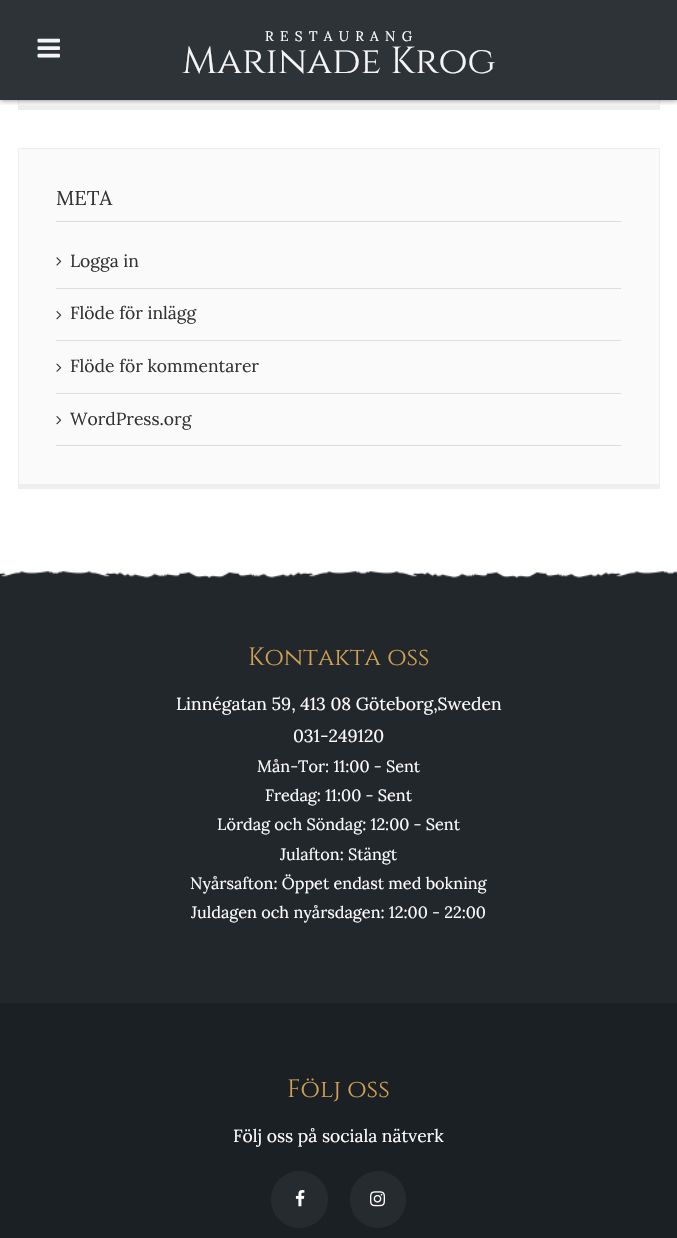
void draw(SkCanvas* canvas) {
    SkPaint paint;
    paint.setAntiAlias(true);
    auto spacedText = [&](const char* s, float x, float y, const SkFont& font, const SkPaint& ink, float letter, float word) {
        std::vector<SkGlyphID> glyphs(font.countText(s, strlen(s), SkTextEncoding::kUTF8));
        std::vector<float> xs(glyphs.size());
        font.textToGlyphs(s, strlen(s), SkTextEncoding::kUTF8, glyphs);
        font.getXPos(glyphs, xs, x);
        float extra = 0;
        for (size_t i = 0; i < glyphs.size(); i++) {
            xs[i] += extra;
            extra += letter + word * (glyphs[i] == font.unicharToGlyph(' '));
        }
        canvas->drawTextBlob(SkTextBlob::MakeFromPosHGlyphs(glyphs, xs, y, font), 0, 0, ink);
    };
    canvas->clear(0xFFFFFFFF);
    paint.setColor(0xFF2E3338);
    canvas->drawRect(SkRect::MakeXYWH(0, 0, 677, 100), paint);
    paint.setColor(0xFFFAFAFA);
    canvas->drawRect(SkRect::MakeXYWH(19, 100, 640, 5), paint);
    paint.setColor(0xFFEEEEEE);
    canvas->drawRect(SkRect::MakeXYWH(659, 100, 1, 10), paint);
    canvas->drawRect(SkRect::MakeXYWH(18, 105, 642, 5), paint);
    canvas->drawRect(SkRect::MakeXYWH(18, 100, 1, 10), paint);
    canvas->save();
    canvas->clipRect(SkRect::MakeXYWH(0, 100, 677, 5));
    paint.setColor(0x80000000);
    paint.setMaskFilter(SkMaskFilter::MakeBlur(kNormal_SkBlurStyle, 3));
    canvas->drawRect(SkRect::MakeXYWH(0, 0, 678, 100), paint);
    paint.setMaskFilter(nullptr);
    canvas->restore();
    canvas->drawImageRect(SkImages::DeferredFromEncodedData(SkData::MakeFromFileName("img1.png")), SkRect::MakeXYWH(37, 38, 23, 20), SkSamplingOptions());
    SkFont font1(fontMgr->matchFamilyStyle("Lora", SkFontStyle::Normal()), 13.75f);
    font1.setSubpixel(true);
    paint.setColor(0xFFFFFFFF);
    spacedText("RESTAURANG", 265, 41, font1, paint, 6.25f, 0);
    SkFont font2(fontMgr->matchFamilyStyle("Cinzel", SkFontStyle::Normal()), 37.5f);
    font2.setSubpixel(true);
    paint.setColor(0xFFF5F5F5);
    canvas->drawString("Marinade Krog", 182, 73, font2, paint);
    paint.setColor(0xFFFAFAFA);
    canvas->drawRect(SkRect::MakeXYWH(19, 149, 640, 335), paint);
    paint.setColor(0xFFEEEEEE);
    canvas->drawRect(SkRect::MakeXYWH(18, 148, 642, 1), paint);
    canvas->drawRect(SkRect::MakeXYWH(659, 148, 1, 341), paint);
    canvas->drawRect(SkRect::MakeXYWH(18, 484, 642, 5), paint);
    canvas->drawRect(SkRect::MakeXYWH(18, 148, 1, 341), paint);
    paint.setColor(0xFFDDDDDD);
    canvas->drawRect(SkRect::MakeXYWH(56, 221, 565, 1), paint);
    SkFont font3(fontMgr->matchFamilyStyle("Lora", SkFontStyle::Normal()), 20);
    font3.setSubpixel(true);
    paint.setColor(0xFF333333);
    canvas->drawString("META", 56, 205, font3, paint);
    paint.setColor(0xFFDDDDDD);
    canvas->drawRect(SkRect::MakeXYWH(56, 288, 565, 1), paint);
    canvas->drawImageRect(SkImages::DeferredFromEncodedData(SkData::MakeFromFileName("img2.png")), SkRect::MakeXYWH(56, 257, 6, 9), SkSamplingOptions());
    SkFont font4(fontMgr->matchFamilyStyle("Lora", SkFontStyle::Normal()), 17.5f);
    font4.setSubpixel(true);
    paint.setColor(0xFF333333);
    canvas->drawString("Logga in", 70, 267, font4, paint);
    paint.setColor(0xFFDDDDDD);
    canvas->drawRect(SkRect::MakeXYWH(56, 340, 565, 1), paint);
    canvas->drawImageRect(SkImages::DeferredFromEncodedData(SkData::MakeFromFileName("img3.png")), SkRect::MakeXYWH(56, 311, 6, 9), SkSamplingOptions());
    paint.setColor(0xFF333333);
    canvas->drawString("Flöde för inlägg", 70, 319, font4, paint);
    paint.setColor(0xFFDDDDDD);
    canvas->drawRect(SkRect::MakeXYWH(56, 393, 565, 1), paint);
    canvas->drawImageRect(SkImages::DeferredFromEncodedData(SkData::MakeFromFileName("img4.png")), SkRect::MakeXYWH(56, 363, 6, 9), SkSamplingOptions());
    paint.setColor(0xFF333333);
    canvas->drawString("Flöde för kommentarer", 70, 372, font4, paint);
    paint.setColor(0xFFDDDDDD);
    canvas->drawRect(SkRect::MakeXYWH(56, 445, 565, 1), paint);
    canvas->drawImageRect(SkImages::DeferredFromEncodedData(SkData::MakeFromFileName("img3.png")), SkRect::MakeXYWH(56, 416, 6, 9), SkSamplingOptions());
    paint.setColor(0xFF333333);
    canvas->drawString("WordPress.org", 70, 425, font4, paint);
    paint.setColor(0xFF22272B);
    canvas->drawRect(SkRect::MakeXYWH(0, 571, 677, 432), paint);
    canvas->drawImageRect(SkImages::DeferredFromEncodedData(SkData::MakeFromFileName("img5.png")), SkRect::MakeXYWH(0, 570, 677, 8), SkSamplingOptions());
    paint.setColor(0xFF1B2024);
    canvas->drawRect(SkRect::MakeXYWH(0, 1003, 677, 235), paint);
    SkFont font5(fontMgr->matchFamilyStyle("Cinzel", SkFontStyle::Normal()), 25);
    font5.setSubpixel(true);
    paint.setColor(0xFFD1A054);
    canvas->drawString("Kontakta oss", 248, 665, font5, paint);
    paint.setColor(0xFFFFFFFF);
    canvas->drawString("Linnégatan 59, 413 08 Göteborg,Sweden", 176, 710, font4, paint);
    canvas->drawString("031-249120", 293, 742, font4, paint);
    SkFont font6(fontMgr->matchFamilyStyle("Lora", SkFontStyle::Normal()), 16.25f);
    font6.setSubpixel(true);
    canvas->drawString("Mån-Tor: 11:00 - Sent", 257, 772, font6, paint);
    canvas->drawString("Fredag: 11:00 - Sent", 265, 801, font6, paint);
    canvas->drawString("Lördag och Söndag: 12:00 - Sent", 217, 830, font6, paint);
    canvas->drawString("Julafton: Stängt", 280, 860, font6, paint);
    canvas->drawString("Nyårsafton: Öppet endast med bokning", 190, 889, font6, paint);
    canvas->drawString("Juldagen och nyårsdagen: 12:00 - 22:00", 191, 918, font6, paint);
    paint.setColor(0xFFD1A054);
    canvas->drawString("Följ oss", 287, 1097, font5, paint);
    paint.setColor(0xFFFFFFFF);
    canvas->drawString("Följ oss på sociala nätverk", 233, 1142, font4, paint);
    paint.setColor(0xFF262B2F);
    canvas->drawCircle(299.5f, 1199.5f, 28.5f, paint);
    canvas->drawImageRect(SkImages::DeferredFromEncodedData(SkData::MakeFromFileName("img6.png")), SkRect::MakeXYWH(295, 1190, 10, 17), SkSamplingOptions());
    canvas->drawRoundRect(SkRect::MakeXYWH(350, 1171, 56, 57), 28, 28, paint);
    canvas->drawImageRect(SkImages::DeferredFromEncodedData(SkData::MakeFromFileName("img7.png")), SkRect::MakeXYWH(370, 1191, 15, 16), SkSamplingOptions());
}
